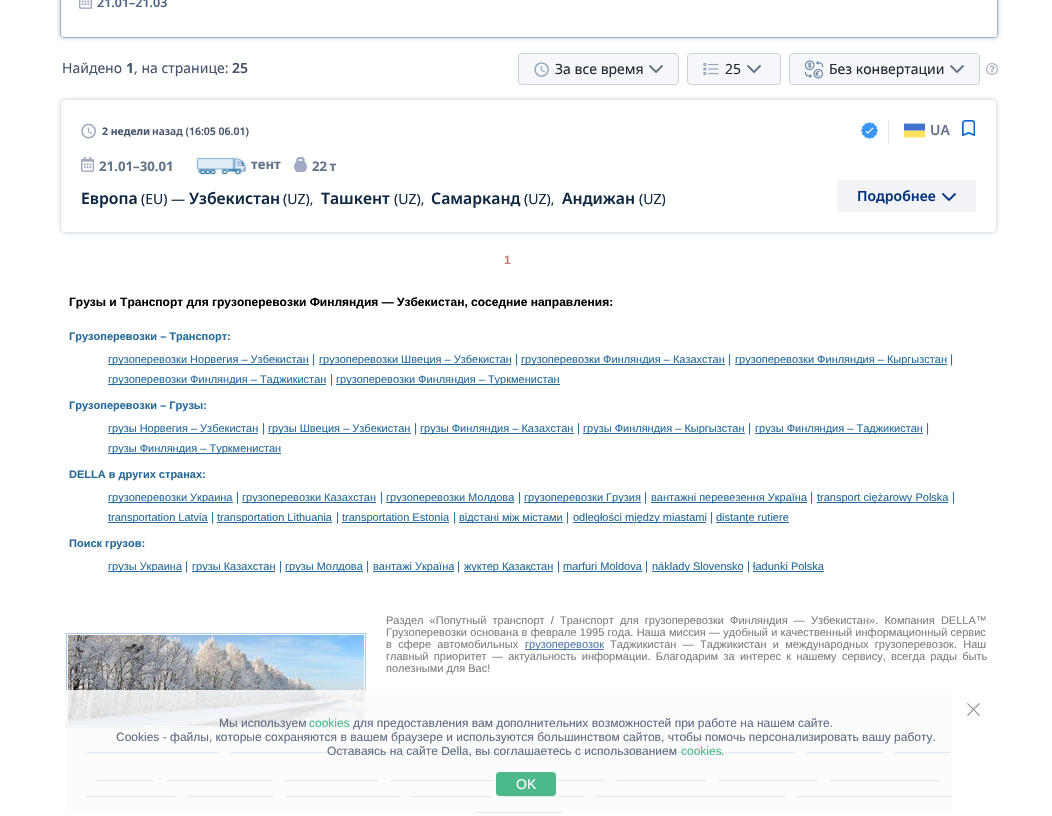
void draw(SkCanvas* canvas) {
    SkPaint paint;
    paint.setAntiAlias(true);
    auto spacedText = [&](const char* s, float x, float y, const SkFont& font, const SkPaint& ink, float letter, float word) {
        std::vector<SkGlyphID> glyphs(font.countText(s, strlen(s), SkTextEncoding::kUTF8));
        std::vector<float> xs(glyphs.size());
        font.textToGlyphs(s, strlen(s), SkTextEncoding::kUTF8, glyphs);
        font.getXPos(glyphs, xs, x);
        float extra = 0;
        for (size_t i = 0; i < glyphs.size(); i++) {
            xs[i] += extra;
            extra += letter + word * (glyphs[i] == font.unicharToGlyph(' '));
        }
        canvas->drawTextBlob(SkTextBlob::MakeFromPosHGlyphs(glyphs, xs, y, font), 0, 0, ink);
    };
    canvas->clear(0xFFFFFFFF);
    canvas->save();
    canvas->clipPath(SkPathBuilder(SkPathFillType::kEvenOdd).moveTo(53, 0).lineTo(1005, 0).lineTo(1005, 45).lineTo(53, 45).close().moveTo(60, -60).lineTo(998, -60).lineTo(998, 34).cubicTo(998, 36, 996, 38, 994, 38).lineTo(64, 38).cubicTo(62, 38, 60, 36, 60, 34).close().detach(), true);
    paint.setColor(0x63486581);
    paint.setMaskFilter(SkMaskFilter::MakeBlur(kNormal_SkBlurStyle, 2));
    canvas->drawRoundRect(SkRect::MakeXYWH(60, -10, 938, 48), 4, 4, paint);
    paint.setMaskFilter(nullptr);
    canvas->restore();
    paint.setStyle(SkPaint::kStroke_Style);
    paint.setStrokeWidth(1);
    paint.setColor(0xFF9FB3C8);
    canvas->drawPath(SkPathBuilder().moveTo(60.5f, -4.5f).lineTo(997.5f, -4.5f).lineTo(997.5f, 34).cubicTo(997.5f, 36, 996, 37.5f, 994, 37.5f).lineTo(64, 37.5f).cubicTo(62, 37.5f, 60.5f, 36, 60.5f, 34).close().detach(), paint);
    canvas->drawImageRect(SkImages::DeferredFromEncodedData(SkData::MakeFromFileName("img1.png")), SkRect::MakeXYWH(79, 0, 13, 9), SkSamplingOptions());
    SkFont font1(fontMgr->matchFamilyStyle("Noto Sans", SkFontStyle(600, SkFontStyle::kNormal_Width, SkFontStyle::kUpright_Slant)), 12.5f);
    font1.setSubpixel(true);
    paint.setStyle(SkPaint::kFill_Style);
    paint.setColor(0xFF486581);
    canvas->drawString("21.01–21.03", 97, 7, font1, paint);
    SkFont font2(fontMgr->matchFamilyStyle("Noto Sans", SkFontStyle::Normal()), 14);
    font2.setSubpixel(true);
    paint.setColor(0xFF45556B);
    canvas->drawString("Найдено", 62, 73, font2, paint);
    SkFont font3(fontMgr->matchFamilyStyle("Noto Sans", SkFontStyle::Bold()), 14);
    font3.setSubpixel(true);
    canvas->drawString("1", 126, 73, font3, paint);
    canvas->drawString(", на странице:", 134, 73, font2, paint);
    SkFont font4(fontMgr->matchFamilyStyle("Noto Sans", SkFontStyle(600, SkFontStyle::kNormal_Width, SkFontStyle::kUpright_Slant)), 14);
    font4.setSubpixel(true);
    canvas->drawString("25", 232, 73, font4, paint);
    paint.setColor(0xFFF5F7FA);
    canvas->drawRoundRect(SkRect::MakeXYWH(518.5f, 53.5f, 160, 31), 3.5f, 3.5f, paint);
    paint.setStyle(SkPaint::kStroke_Style);
    paint.setColor(0xFFCBD2D9);
    canvas->drawRoundRect(SkRect::MakeXYWH(518.5f, 53.5f, 160, 31), 3.5f, 3.5f, paint);
    canvas->drawImageRect(SkImages::DeferredFromEncodedData(SkData::MakeFromFileName("img2.png")), SkRect::MakeXYWH(534, 62, 15, 15), SkSamplingOptions());
    paint.setStyle(SkPaint::kFill_Style);
    paint.setColor(0xFF1F2933);
    canvas->drawString("За все время", 555, 74, font2, paint);
    canvas->drawImageRect(SkImages::DeferredFromEncodedData(SkData::MakeFromFileName("img3.png")), SkRect::MakeXYWH(649, 65, 14, 8), SkSamplingOptions());
    paint.setColor(0xFFF5F7FA);
    canvas->drawRoundRect(SkRect::MakeXYWH(687.5f, 53.5f, 93, 31), 3.5f, 3.5f, paint);
    paint.setStyle(SkPaint::kStroke_Style);
    paint.setColor(0xFFCBD2D9);
    canvas->drawRoundRect(SkRect::MakeXYWH(687.5f, 53.5f, 93, 31), 3.5f, 3.5f, paint);
    canvas->drawImageRect(SkImages::DeferredFromEncodedData(SkData::MakeFromFileName("img4.png")), SkRect::MakeXYWH(703, 63, 16, 12), SkSamplingOptions());
    paint.setStyle(SkPaint::kFill_Style);
    paint.setColor(0xFF1F2933);
    canvas->drawString("25", 725, 74, font2, paint);
    canvas->drawImageRect(SkImages::DeferredFromEncodedData(SkData::MakeFromFileName("img3.png")), SkRect::MakeXYWH(747, 65, 14, 8), SkSamplingOptions());
    paint.setColor(0xFFF5F7FA);
    canvas->drawRoundRect(SkRect::MakeXYWH(789.5f, 53.5f, 190, 31), 3.5f, 3.5f, paint);
    paint.setStyle(SkPaint::kStroke_Style);
    paint.setColor(0xFFCBD2D9);
    canvas->drawRoundRect(SkRect::MakeXYWH(789.5f, 53.5f, 190, 31), 3.5f, 3.5f, paint);
    canvas->drawImageRect(SkImages::DeferredFromEncodedData(SkData::MakeFromFileName("img5.png")), SkRect::MakeXYWH(805, 60, 18, 19), SkSamplingOptions());
    paint.setStyle(SkPaint::kFill_Style);
    paint.setColor(0xFF1F2933);
    canvas->drawString("Без конвертации", 829, 74, font2, paint);
    canvas->drawImageRect(SkImages::DeferredFromEncodedData(SkData::MakeFromFileName("img3.png")), SkRect::MakeXYWH(950, 65, 14, 8), SkSamplingOptions());
    canvas->drawImageRect(SkImages::DeferredFromEncodedData(SkData::MakeFromFileName("img6.png")), SkRect::MakeXYWH(986, 63, 12, 12), SkSamplingOptions());
    canvas->save();
    canvas->clipPath(SkPathBuilder(SkPathFillType::kEvenOdd).moveTo(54, 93).lineTo(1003, 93).lineTo(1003, 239).lineTo(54, 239).close().moveTo(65, 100).lineTo(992, 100).cubicTo(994, 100, 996, 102, 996, 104).lineTo(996, 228).cubicTo(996, 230, 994, 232, 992, 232).lineTo(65, 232).cubicTo(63, 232, 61, 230, 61, 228).lineTo(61, 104).cubicTo(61, 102, 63, 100, 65, 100).close().detach(), true);
    paint.setColor(0x63486581);
    paint.setMaskFilter(SkMaskFilter::MakeBlur(kNormal_SkBlurStyle, 2));
    canvas->drawRoundRect(SkRect::MakeXYWH(61, 100, 935, 132), 4, 4, paint);
    paint.setMaskFilter(nullptr);
    canvas->restore();
    paint.setStyle(SkPaint::kStroke_Style);
    paint.setColor(0xFFFFFFFF);
    canvas->drawRoundRect(SkRect::MakeXYWH(61.5f, 100.5f, 934, 131), 3.5f, 3.5f, paint);
    canvas->drawImageRect(SkImages::DeferredFromEncodedData(SkData::MakeFromFileName("img7.png")), SkRect::MakeXYWH(81, 123, 15, 16), SkSamplingOptions());
    SkFont font5(fontMgr->matchFamilyStyle("Noto Sans", SkFontStyle::Bold()), 10.5f);
    font5.setSubpixel(true);
    paint.setStyle(SkPaint::kFill_Style);
    paint.setColor(0xFF45556B);
    canvas->drawString("2 недели", 102, 135, font5, paint);
    SkFont font6(fontMgr->matchFamilyStyle("Noto Sans", SkFontStyle(600, SkFontStyle::kNormal_Width, SkFontStyle::kUpright_Slant)), 10.5f);
    font6.setSubpixel(true);
    canvas->drawString("назад (16:05 06.01)", 152, 135, font6, paint);
    canvas->drawImageRect(SkImages::DeferredFromEncodedData(SkData::MakeFromFileName("img8.png")), SkRect::MakeXYWH(861, 122, 17, 17), SkSamplingOptions());
    paint.setColor(0xFFE1E5E9);
    canvas->drawRect(SkRect::MakeXYWH(888, 120, 1, 23), paint);
    canvas->drawImageRect(SkImages::DeferredFromEncodedData(SkData::MakeFromFileName("img9.png")), SkRect::MakeXYWH(904, 123, 21, 15), SkSamplingOptions());
    paint.setColor(0xFF63758B);
    canvas->drawString("UA", 930, 135, font4, paint);
    canvas->drawImageRect(SkImages::DeferredFromEncodedData(SkData::MakeFromFileName("img10.png")), SkRect::MakeXYWH(962, 120, 13, 16), SkSamplingOptions());
    canvas->drawImageRect(SkImages::DeferredFromEncodedData(SkData::MakeFromFileName("img11.png")), SkRect::MakeXYWH(81, 157, 13, 15), SkSamplingOptions());
    SkFont font7(fontMgr->matchFamilyStyle("Noto Sans", SkFontStyle::Bold()), 13.25f);
    font7.setSubpixel(true);
    canvas->drawString("21.01–30.01", 99, 171, font7, paint);
    canvas->drawImageRect(SkImages::DeferredFromEncodedData(SkData::MakeFromFileName("img12.png")), SkRect::MakeXYWH(196, 157, 50, 18), SkSamplingOptions());
    canvas->drawString("тент", 251, 169, font7, paint);
    canvas->drawImageRect(SkImages::DeferredFromEncodedData(SkData::MakeFromFileName("img13.png")), SkRect::MakeXYWH(294, 157, 13, 15), SkSamplingOptions());
    spacedText("22 т", 312, 171, font7, paint, 0, -1);
    SkFont font8(fontMgr->matchFamilyStyle("Noto Sans", SkFontStyle(600, SkFontStyle::kNormal_Width, SkFontStyle::kUpright_Slant)), 15.75f);
    font8.setSubpixel(true);
    paint.setColor(0xFF102A43);
    canvas->drawString("Европа", 81, 204, font8, paint);
    canvas->drawString("(EU) —", 141, 204, font2, paint);
    canvas->drawString("Узбекистан", 189, 204, font8, paint);
    canvas->drawString("(UZ),", 283, 204, font2, paint);
    canvas->drawString("Ташкент", 321, 204, font8, paint);
    canvas->drawString("(UZ),", 394, 204, font2, paint);
    canvas->drawString("Самарканд", 431, 204, font8, paint);
    canvas->drawString("(UZ),", 524, 204, font2, paint);
    canvas->drawString("Андижан", 562, 204, font8, paint);
    canvas->drawString("(UZ)", 639, 204, font2, paint);
    paint.setColor(0xFFF2F3F7);
    canvas->drawRoundRect(SkRect::MakeXYWH(837, 180, 139, 32), 4, 4, paint);
    paint.setColor(0xFF01337D);
    canvas->drawString("Подробнее", 857, 201, font4, paint);
    canvas->drawImageRect(SkImages::DeferredFromEncodedData(SkData::MakeFromFileName("img14.png")), SkRect::MakeXYWH(942, 193, 14, 8), SkSamplingOptions());
    SkFont font9(fontMgr->matchFamilyStyle("Liberation Sans", SkFontStyle::Bold()), 12);
    font9.setSubpixel(true);
    paint.setColor(0xFFC37A7A);
    canvas->drawString("1", 504, 264, font9, paint);
    paint.setColor(0xFF000000);
    canvas->drawString("Грузы и Транспорт для грузоперевозки Финляндия — Узбекистан, соседние направления:", 69, 306, font9, paint);
    SkFont font10(fontMgr->matchFamilyStyle("Liberation Sans", SkFontStyle::Bold()), 11);
    font10.setSubpixel(true);
    paint.setColor(0xFF256A9A);
    canvas->drawString("Грузоперевозки – Транспорт:", 69, 340, font10, paint);
    canvas->drawRect(SkRect::MakeXYWH(108, 364, 201, 1), paint);
    SkFont font11(fontMgr->matchFamilyStyle("Liberation Sans", SkFontStyle::Normal()), 11);
    font11.setSubpixel(true);
    canvas->drawString("грузоперевозки Норвегия – Узбекистан", 108, 363, font11, paint);
    SkFont font12(fontMgr->matchFamilyStyle("Liberation Sans", SkFontStyle::Normal()), 12);
    font12.setSubpixel(true);
    canvas->drawString("|", 312, 363, font12, paint);
    canvas->drawRect(SkRect::MakeXYWH(319, 364, 192, 1), paint);
    canvas->drawString("грузоперевозки Швеция – Узбекистан", 319, 363, font11, paint);
    canvas->drawString("|", 515, 363, font12, paint);
    canvas->drawRect(SkRect::MakeXYWH(521, 364, 204, 1), paint);
    canvas->drawString("грузоперевозки Финляндия – Казахстан", 521, 363, font11, paint);
    canvas->drawString("|", 728, 363, font12, paint);
    canvas->drawRect(SkRect::MakeXYWH(735, 364, 212, 1), paint);
    canvas->drawString("грузоперевозки Финляндия – Кыргызстан", 735, 363, font11, paint);
    canvas->drawString("|", 950, 363, font12, paint);
    canvas->drawRect(SkRect::MakeXYWH(108, 384, 218, 1), paint);
    canvas->drawString("грузоперевозки Финляндия – Таджикистан", 108, 383, font11, paint);
    canvas->drawString("|", 330, 383, font12, paint);
    canvas->drawRect(SkRect::MakeXYWH(336, 384, 224, 1), paint);
    canvas->drawString("грузоперевозки Финляндия – Туркменистан", 336, 383, font11, paint);
    canvas->drawString("Грузоперевозки – Грузы:", 69, 409, font10, paint);
    canvas->drawRect(SkRect::MakeXYWH(108, 433, 150, 1), paint);
    canvas->drawString("грузы Норвегия – Узбекистан", 108, 432, font11, paint);
    canvas->drawString("|", 262, 432, font12, paint);
    canvas->drawRect(SkRect::MakeXYWH(268, 433, 143, 1), paint);
    canvas->drawString("грузы Швеция – Узбекистан", 268, 432, font11, paint);
    canvas->drawString("|", 414, 432, font12, paint);
    canvas->drawRect(SkRect::MakeXYWH(420, 433, 154, 1), paint);
    canvas->drawString("грузы Финляндия – Казахстан", 420, 432, font11, paint);
    canvas->drawString("|", 577, 432, font12, paint);
    canvas->drawRect(SkRect::MakeXYWH(583, 433, 162, 1), paint);
    canvas->drawString("грузы Финляндия – Кыргызстан", 583, 432, font11, paint);
    canvas->drawString("|", 748, 432, font12, paint);
    canvas->drawRect(SkRect::MakeXYWH(755, 433, 168, 1), paint);
    canvas->drawString("грузы Финляндия – Таджикистан", 755, 432, font11, paint);
    canvas->drawString("|", 926, 432, font12, paint);
    canvas->drawRect(SkRect::MakeXYWH(108, 453, 173, 1), paint);
    canvas->drawString("грузы Финляндия – Туркменистан", 108, 452, font11, paint);
    canvas->drawString("DELLA в других странах:", 69, 478, font10, paint);
    canvas->drawRect(SkRect::MakeXYWH(108, 502, 125, 1), paint);
    canvas->drawString("грузоперевозки Украина", 108, 501, font11, paint);
    canvas->drawString("|", 236, 501, font12, paint);
    canvas->drawRect(SkRect::MakeXYWH(242, 502, 134, 1), paint);
    canvas->drawString("грузоперевозки Казахстан", 242, 501, font11, paint);
    canvas->drawString("|", 380, 501, font12, paint);
    canvas->drawRect(SkRect::MakeXYWH(386, 502, 128, 1), paint);
    canvas->drawString("грузоперевозки Молдова", 386, 501, font11, paint);
    canvas->drawString("|", 518, 501, font12, paint);
    canvas->drawRect(SkRect::MakeXYWH(524, 502, 117, 1), paint);
    canvas->drawString("грузоперевозки Грузия", 524, 501, font11, paint);
    canvas->drawString("|", 644, 501, font12, paint);
    canvas->drawRect(SkRect::MakeXYWH(651, 502, 156, 1), paint);
    canvas->drawString("вантажні перевезення Україна", 651, 501, font11, paint);
    canvas->drawString("|", 810, 501, font12, paint);
    canvas->drawRect(SkRect::MakeXYWH(817, 502, 131, 1), paint);
    canvas->drawString("transport ciężarowy Polska", 817, 501, font11, paint);
    canvas->drawString("|", 952, 501, font12, paint);
    canvas->drawRect(SkRect::MakeXYWH(108, 522, 100, 1), paint);
    canvas->drawString("transportation Latvia", 108, 521, font11, paint);
    canvas->drawString("|", 211, 521, font12, paint);
    canvas->drawRect(SkRect::MakeXYWH(217, 522, 115, 1), paint);
    canvas->drawString("transportation Lithuania", 217, 521, font11, paint);
    canvas->drawString("|", 336, 521, font12, paint);
    canvas->drawRect(SkRect::MakeXYWH(342, 522, 107, 1), paint);
    canvas->drawString("transportation Estonia", 342, 521, font11, paint);
    canvas->drawString("|", 453, 521, font12, paint);
    canvas->drawRect(SkRect::MakeXYWH(459, 522, 104, 1), paint);
    canvas->drawString("відстані між містами", 459, 521, font11, paint);
    canvas->drawString("|", 566, 521, font12, paint);
    canvas->drawRect(SkRect::MakeXYWH(573, 522, 133, 1), paint);
    canvas->drawString("odległości między miastami", 573, 521, font11, paint);
    canvas->drawString("|", 710, 521, font12, paint);
    canvas->drawRect(SkRect::MakeXYWH(716, 522, 73, 1), paint);
    canvas->drawString("distanţe rutiere", 716, 521, font11, paint);
    canvas->drawString("Поиск грузов:", 69, 547, font10, paint);
    canvas->drawRect(SkRect::MakeXYWH(108, 571, 74, 1), paint);
    canvas->drawString("грузы Украина", 108, 570, font11, paint);
    canvas->drawString("|", 185, 570, font12, paint);
    canvas->drawRect(SkRect::MakeXYWH(192, 571, 83, 1), paint);
    canvas->drawString("грузы Казахстан", 192, 570, font11, paint);
    canvas->drawString("|", 279, 570, font12, paint);
    canvas->drawRect(SkRect::MakeXYWH(285, 571, 78, 1), paint);
    canvas->drawString("грузы Молдова", 285, 570, font11, paint);
    canvas->drawString("|", 366, 570, font12, paint);
    canvas->drawRect(SkRect::MakeXYWH(373, 571, 81, 1), paint);
    canvas->drawString("вантажі Україна", 373, 570, font11, paint);
    canvas->drawString("|", 457, 570, font12, paint);
    canvas->drawRect(SkRect::MakeXYWH(464, 571, 89, 1), paint);
    canvas->drawString("жүктер Қазақстан", 464, 570, font11, paint);
    canvas->drawString("|", 557, 570, font12, paint);
    canvas->drawString("marfuri Moldova", 563, 570, font11, paint);
    canvas->drawRect(SkRect::MakeXYWH(563, 571, 79, 1), paint);
    canvas->drawString("|", 645, 570, font12, paint);
    canvas->drawRect(SkRect::MakeXYWH(652, 571, 91, 1), paint);
    canvas->drawString("náklady Slovensko", 652, 570, font11, paint);
    canvas->drawString("|", 747, 570, font12, paint);
    canvas->drawString("ładunki Polska", 753, 570, font11, paint);
    canvas->drawRect(SkRect::MakeXYWH(753, 571, 71, 1), paint);
    canvas->drawImageRect(SkImages::DeferredFromEncodedData(SkData::MakeFromFileName("img15.png")), SkRect::MakeXYWH(66, 633, 300, 95), SkSamplingOptions());
    paint.setColor(0xFF7D7E7E);
    spacedText("Раздел «Попутный транспорт / Транспорт для грузоперевозки Финляндия — Узбекистан». Компания DELLA™", 386, 624, font11, paint, 0, 3.1f);
    spacedText("Грузоперевозки основана в феврале 1995 года. Наша миссия — удобный и качественный информационный сервис", 386, 636, font11, paint, 0, 0.25f);
    spacedText("в сфере автомобильных", 386, 648, font11, paint, 0, 3.25f);
    paint.setColor(0xFF517AAC);
    canvas->drawRect(SkRect::MakeXYWH(525, 649, 79, 1), paint);
    canvas->drawString("грузоперевозок", 525, 648, font11, paint);
    paint.setColor(0xFF7D7E7E);
    spacedText("Таджикистан — Таджикистан и международных грузоперевозок. Наш", 610, 648, font11, paint, 0, 3.25f);
    spacedText("главный приоритет — актуальность информации. Благодарим за интерес к нашему сервису, всегда рады быть", 386, 660, font11, paint, 0, 2.25f);
    canvas->drawString("полезными для Вас!", 386, 672, font11, paint);
    paint.setColor(0xFF517AAC);
    canvas->drawRect(SkRect::MakeXYWH(476, 724, 41, 1), paint);
    canvas->drawRect(SkRect::MakeXYWH(528, 724, 46, 1), paint);
    canvas->drawRect(SkRect::MakeXYWH(87, 752, 132, 1), paint);
    canvas->drawRect(SkRect::MakeXYWH(230, 752, 196, 1), paint);
    canvas->drawRect(SkRect::MakeXYWH(438, 752, 211, 1), paint);
    canvas->drawRect(SkRect::MakeXYWH(661, 752, 134, 1), paint);
    canvas->drawRect(SkRect::MakeXYWH(806, 752, 77, 1), paint);
    canvas->drawRect(SkRect::MakeXYWH(894, 752, 56, 1), paint);
    canvas->drawRect(SkRect::MakeXYWH(97, 780, 57, 1), paint);
    canvas->drawRect(SkRect::MakeXYWH(166, 780, 106, 1), paint);
    canvas->drawRect(SkRect::MakeXYWH(284, 780, 95, 1), paint);
    canvas->drawRect(SkRect::MakeXYWH(390, 780, 104, 1), paint);
    canvas->drawRect(SkRect::MakeXYWH(556, 780, 49, 1), paint);
    canvas->drawRect(SkRect::MakeXYWH(617, 780, 90, 1), paint);
    canvas->drawRect(SkRect::MakeXYWH(719, 780, 98, 1), paint);
    canvas->drawRect(SkRect::MakeXYWH(829, 780, 111, 1), paint);
    canvas->drawRect(SkRect::MakeXYWH(85, 796, 90, 1), paint);
    canvas->drawRect(SkRect::MakeXYWH(187, 796, 86, 1), paint);
    canvas->drawRect(SkRect::MakeXYWH(285, 796, 114, 1), paint);
    canvas->drawRect(SkRect::MakeXYWH(410, 796, 82, 1), paint);
    canvas->drawRect(SkRect::MakeXYWH(504, 796, 80, 1), paint);
    canvas->drawRect(SkRect::MakeXYWH(595, 796, 190, 1), paint);
    canvas->drawRect(SkRect::MakeXYWH(796, 796, 156, 1), paint);
    canvas->drawRect(SkRect::MakeXYWH(475, 812, 87, 1), paint);
    paint.setColor(0xD9FCFCFC);
    canvas->drawRect(SkRect::MakeXYWH(66, 690, 886, 123), paint);
    canvas->drawImageRect(SkImages::DeferredFromEncodedData(SkData::MakeFromFileName("img16.png")), SkRect::MakeXYWH(967, 703, 13, 13), SkSamplingOptions());
    paint.setColor(0xFF5E6C84);
    canvas->drawString("Мы используем", 219, 727, font12, paint);
    paint.setColor(0xFF4BB989);
    canvas->drawString("cookies", 309, 727, font12, paint);
    paint.setColor(0xFF5E6C84);
    canvas->drawString("для предоставления вам дополнительних возможностей при работе на нашем сайте.", 353, 727, font12, paint);
    canvas->drawString("Cookies - файлы, которые сохраняются в вашем браузере и используются большинством сайтов, чтобы помочь персонализировать вашу работу.", 116, 741, font12, paint);
    canvas->drawString("Оставаясь на сайте Della, вы соглашаетесь с использованием", 327, 755, font12, paint);
    paint.setColor(0xFF4BB989);
    canvas->drawString("cookies", 681, 755, font12, paint);
    paint.setColor(0xFF5E6C84);
    canvas->drawString(".", 721, 755, font12, paint);
    paint.setColor(0xFF4BB989);
    canvas->drawRoundRect(SkRect::MakeXYWH(496, 772, 60, 24), 4, 4, paint);
    SkFont font13(fontMgr->matchFamilyStyle("Liberation Sans", SkFontStyle::Normal()), 14);
    font13.setSubpixel(true);
    paint.setColor(0xFFFFFFFF);
    canvas->drawString("OK", 516, 789, font13, paint);
}
